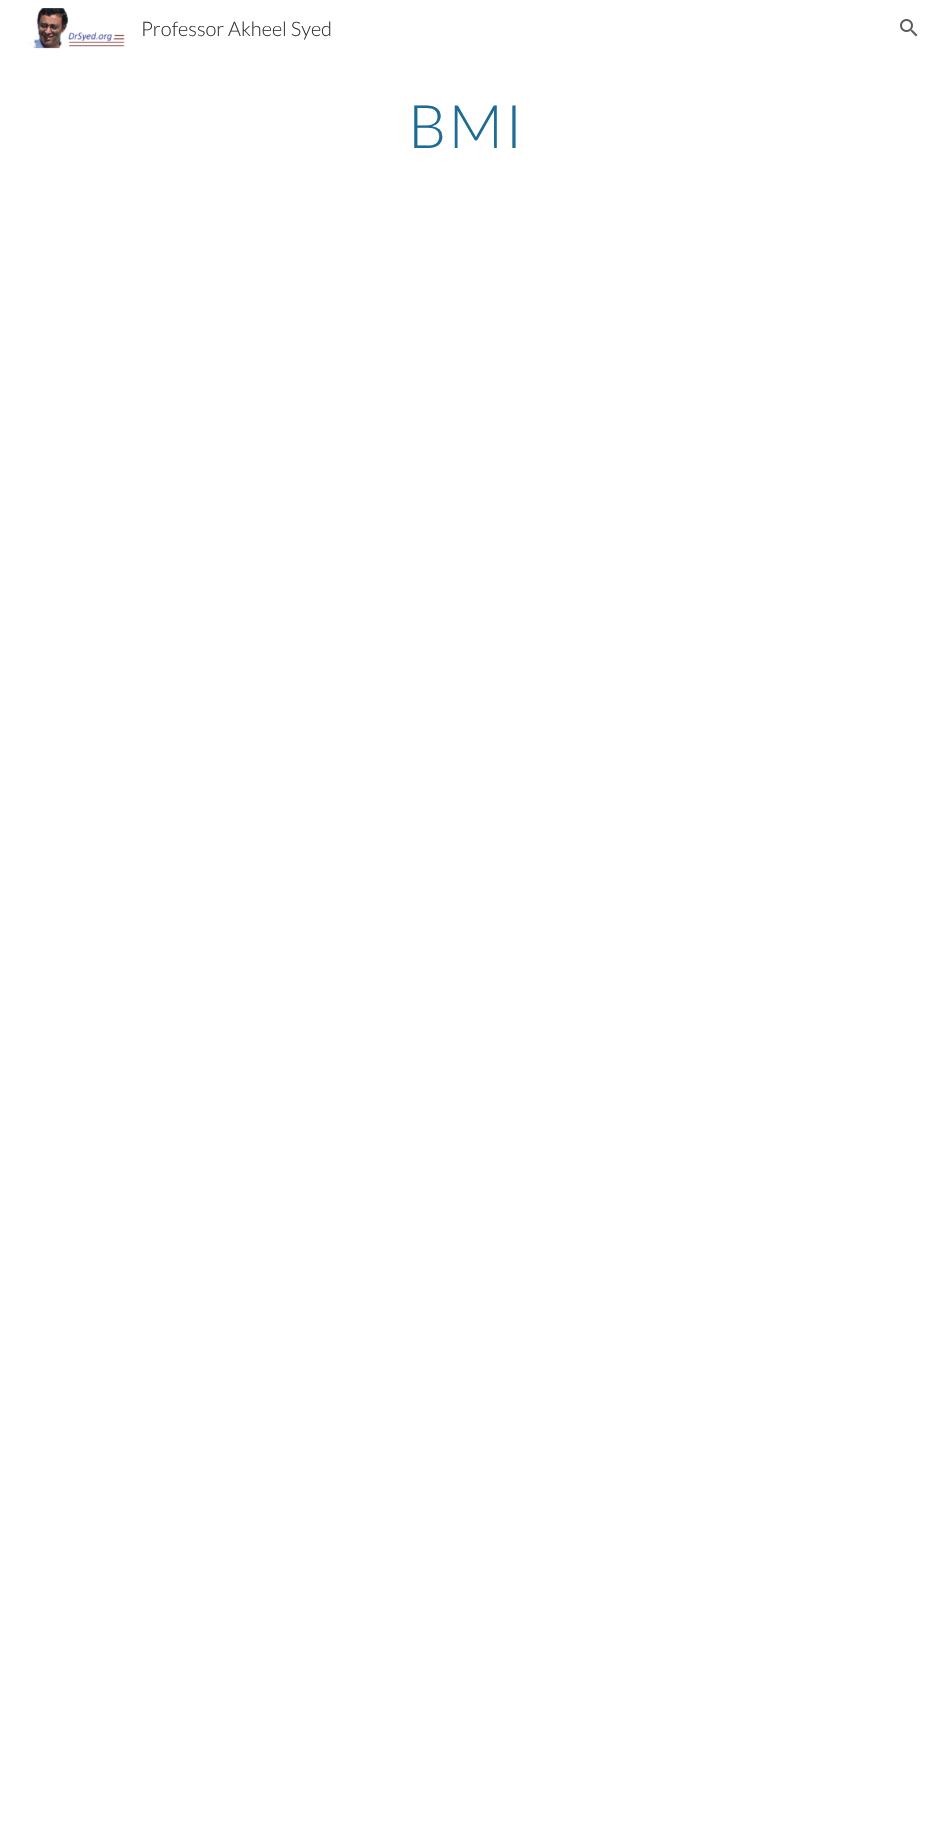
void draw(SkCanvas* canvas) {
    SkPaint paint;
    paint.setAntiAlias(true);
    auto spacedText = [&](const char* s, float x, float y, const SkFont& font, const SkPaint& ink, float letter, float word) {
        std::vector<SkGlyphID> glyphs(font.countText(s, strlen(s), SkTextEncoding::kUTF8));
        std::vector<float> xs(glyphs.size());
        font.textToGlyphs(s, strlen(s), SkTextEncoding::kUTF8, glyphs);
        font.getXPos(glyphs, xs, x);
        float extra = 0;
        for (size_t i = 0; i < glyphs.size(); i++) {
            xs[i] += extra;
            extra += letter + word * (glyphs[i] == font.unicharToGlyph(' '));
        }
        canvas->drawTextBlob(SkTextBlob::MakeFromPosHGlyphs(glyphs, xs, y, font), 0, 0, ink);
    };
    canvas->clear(0xFFFFFFFF);
    canvas->drawImageRect(SkImages::DeferredFromEncodedData(SkData::MakeFromFileName("img1.png")), SkRect::MakeXYWH(28, 8, 97, 41), SkSamplingOptions());
    SkFont font1(fontMgr->matchFamilyStyle("Lato", SkFontStyle(300, SkFontStyle::kNormal_Width, SkFontStyle::kUpright_Slant)), 20);
    font1.setSubpixel(true);
    paint.setColor(0xFF333333);
    canvas->drawString("Professor Akheel Syed", 141, 36, font1, paint);
    canvas->drawImageRect(SkImages::DeferredFromEncodedData(SkData::MakeFromFileName("img2.png")), SkRect::MakeXYWH(900, 19, 18, 18), SkSamplingOptions());
    SkFont font2(fontMgr->matchFamilyStyle("Lato", SkFontStyle(300, SkFontStyle::kNormal_Width, SkFontStyle::kUpright_Slant)), 60);
    font2.setSubpixel(true);
    paint.setColor(0xFF1E6C93);
    spacedText("BMI", 408, 148, font2, paint, 2, 0);
}
